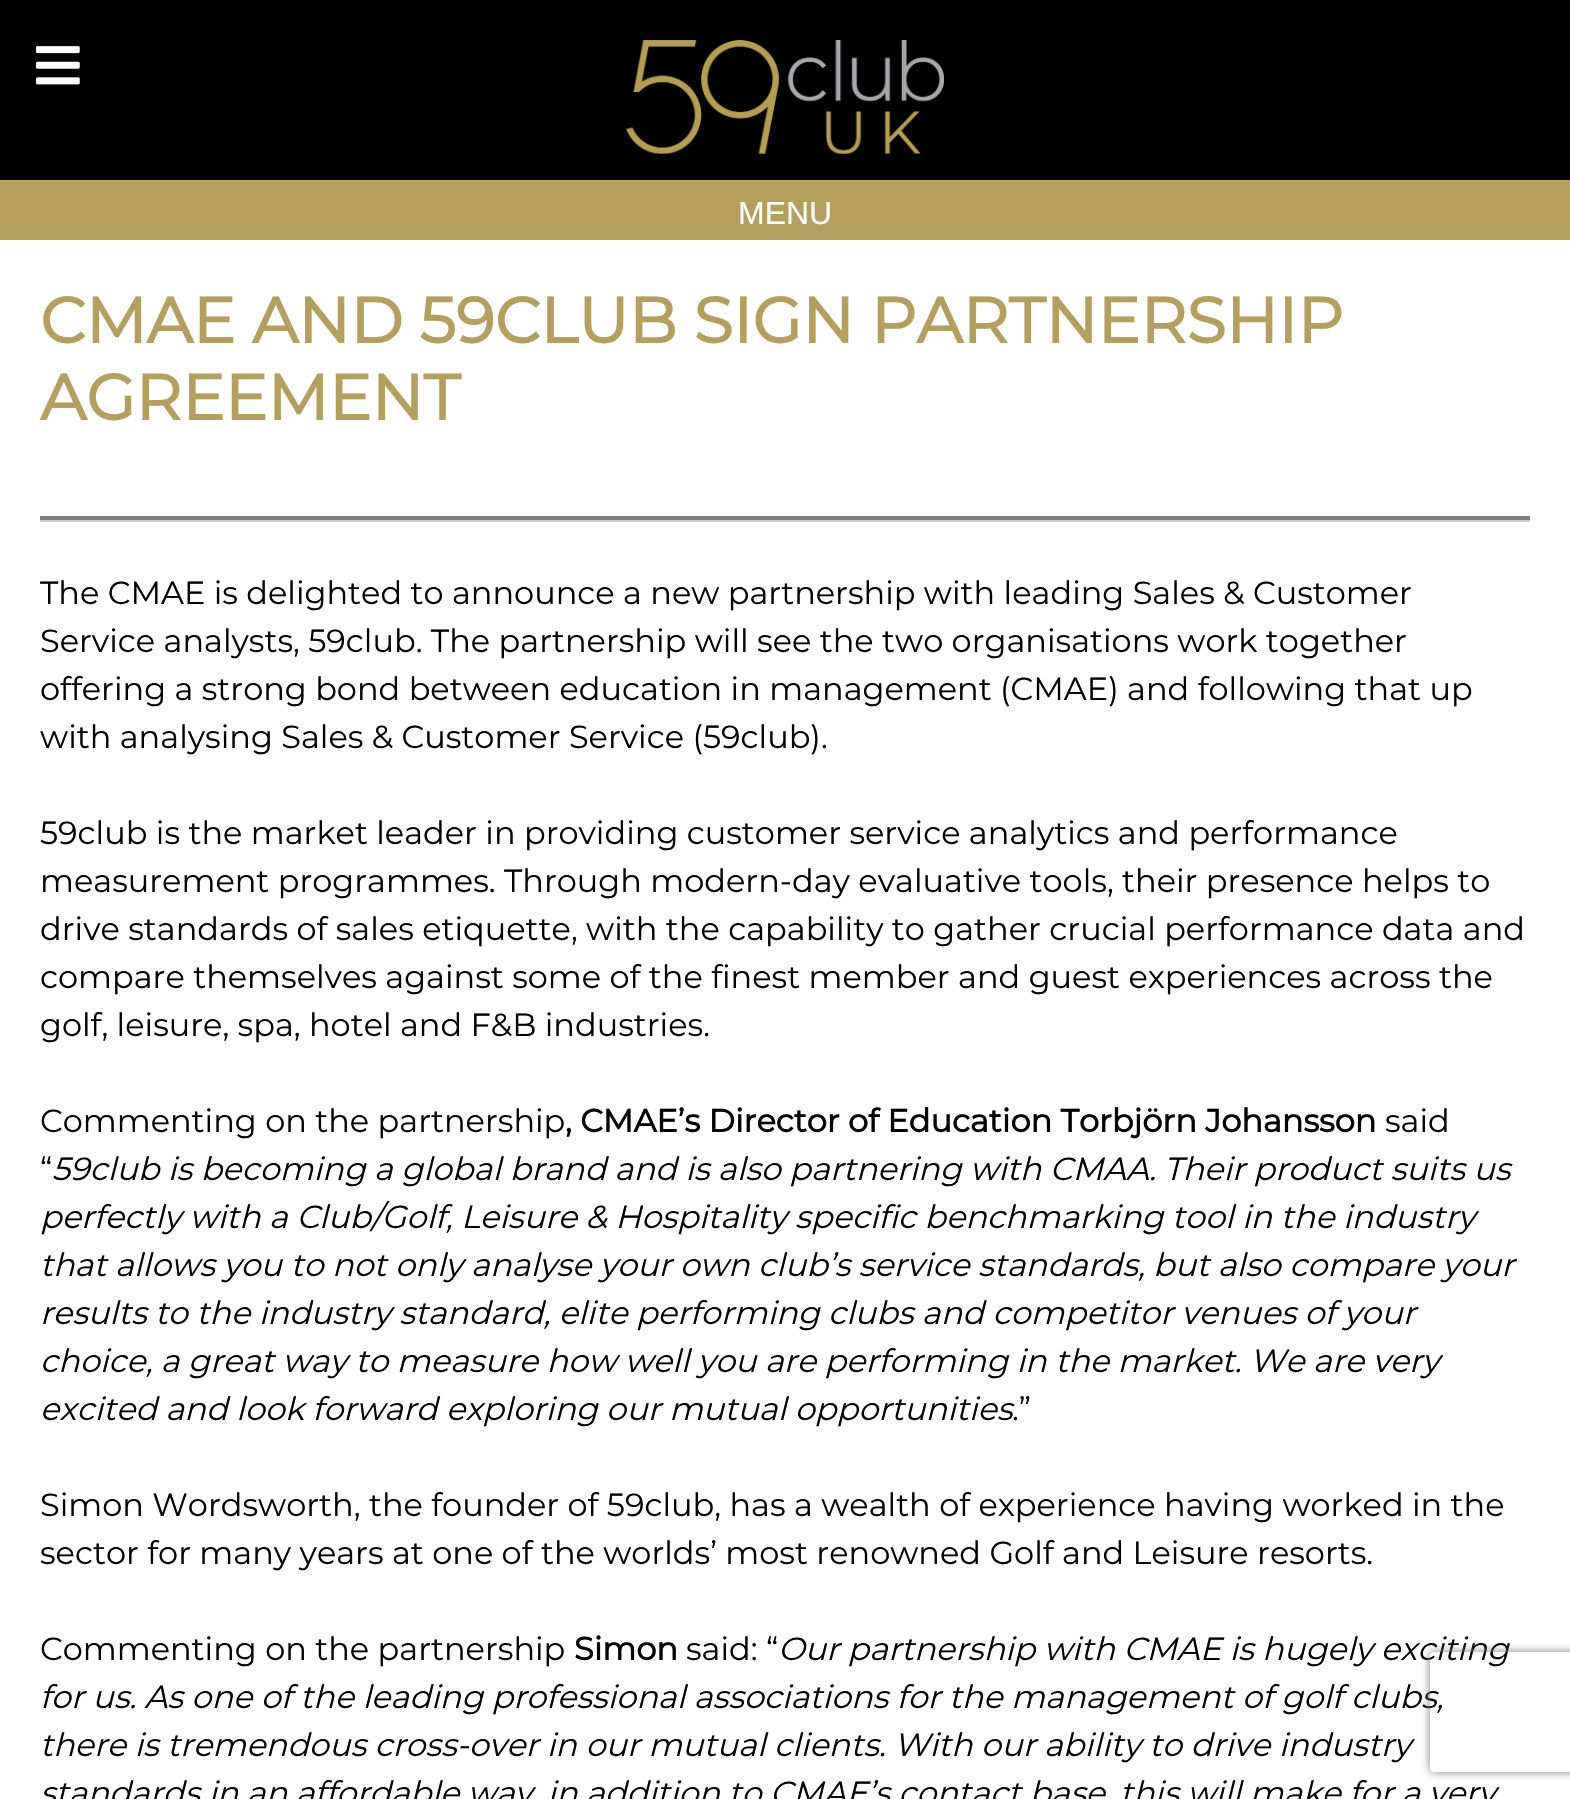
void draw(SkCanvas* canvas) {
    SkPaint paint;
    paint.setAntiAlias(true);
    canvas->clear(0xFFFFFFFF);
    paint.setColor(0xFF000000);
    canvas->drawRect(SkRect::MakeXYWH(0, 0, 1570, 180), paint);
    canvas->drawImageRect(SkImages::DeferredFromEncodedData(SkData::MakeFromFileName("img1.png")), SkRect::MakeXYWH(36, 46, 44, 39), SkSamplingOptions());
    canvas->drawImageRect(SkImages::DeferredFromEncodedData(SkData::MakeFromFileName("img2.png")), SkRect::MakeXYWH(626, 40, 318, 114), SkSamplingOptions());
    paint.setColor(0xFFB59F5D);
    canvas->drawRect(SkRect::MakeXYWH(0, 180, 1570, 60), paint);
    SkFont font1(fontMgr->matchFamilyStyle("Liberation Sans", SkFontStyle::Normal()), 32);
    font1.setSubpixel(true);
    paint.setColor(0xFFFFFFFF);
    canvas->drawString("MENU", 738, 224, font1, paint);
    SkFont font2(fontMgr->matchFamilyStyle("Montserrat", SkFontStyle::Bold()), 64);
    font2.setSubpixel(true);
    paint.setColor(0xFFB59F5D);
    canvas->drawString("CMAE AND 59CLUB SIGN PARTNERSHIP", 40, 343, font2, paint);
    canvas->drawString("AGREEMENT", 40, 420, font2, paint);
    paint.setColor(0xFFCCCCCC);
    canvas->drawRect(SkRect::MakeXYWH(40, 520, 1490, 2), paint);
    paint.setColor(0xFF808080);
    canvas->drawRect(SkRect::MakeXYWH(40, 516, 1490, 4), paint);
    SkFont font3(fontMgr->matchFamilyStyle("Montserrat", SkFontStyle(100, SkFontStyle::kNormal_Width, SkFontStyle::kUpright_Slant)), 32);
    font3.setSubpixel(true);
    paint.setColor(0xFF000000);
    canvas->drawString("The CMAE is delighted to announce a new partnership with leading Sales & Customer", 40, 604, font3, paint);
    canvas->drawString("Service analysts, 59club. The partnership will see the two organisations work together", 40, 652, font3, paint);
    canvas->drawString("offering a strong bond between education in management (CMAE) and following that up", 40, 700, font3, paint);
    canvas->drawString("with analysing Sales & Customer Service (59club).", 40, 748, font3, paint);
    canvas->drawString("59club is the market leader in providing customer service analytics and performance", 40, 844, font3, paint);
    canvas->drawString("measurement programmes. Through modern-day evaluative tools, their presence helps to", 40, 892, font3, paint);
    canvas->drawString("drive standards of sales etiquette, with the capability to gather crucial performance data and", 40, 940, font3, paint);
    canvas->drawString("compare themselves against some of the finest member and guest experiences across the", 40, 988, font3, paint);
    canvas->drawString("golf, leisure, spa, hotel and F&B industries.", 40, 1036, font3, paint);
    canvas->drawString("Commenting on the partnership", 40, 1132, font3, paint);
    SkFont font4(fontMgr->matchFamilyStyle("Montserrat", SkFontStyle::Bold()), 32);
    font4.setSubpixel(true);
    canvas->drawString(", CMAE’s Director of Education Torbjörn Johansson", 565, 1132, font4, paint);
    canvas->drawString("said", 1385, 1132, font3, paint);
    canvas->drawString("“", 40, 1180, font3, paint);
    SkFont font5(fontMgr->matchFamilyStyle("Montserrat", SkFontStyle(100, SkFontStyle::kNormal_Width, SkFontStyle::kItalic_Slant)), 32);
    font5.setSubpixel(true);
    canvas->drawString("59club is becoming a global brand and is also partnering with CMAA. Their product suits us", 52, 1180, font5, paint);
    canvas->drawString("perfectly with a Club/Golf, Leisure & Hospitality specific benchmarking tool in the industry", 40, 1228, font5, paint);
    canvas->drawString("that allows you to not only analyse your own club’s service standards, but also compare your", 40, 1276, font5, paint);
    canvas->drawString("results to the industry standard, elite performing clubs and competitor venues of your", 40, 1324, font5, paint);
    canvas->drawString("choice, a great way to measure how well you are performing in the market. We are very", 40, 1372, font5, paint);
    canvas->drawString("excited and look forward exploring our mutual opportunities", 40, 1420, font5, paint);
    canvas->drawString(".”", 1012, 1420, font3, paint);
    canvas->drawString("Simon Wordsworth, the founder of 59club, has a wealth of experience having worked in the", 40, 1516, font3, paint);
    canvas->drawString("sector for many years at one of the worlds’ most renowned Golf and Leisure resorts.", 40, 1564, font3, paint);
    canvas->drawString("Commenting on the partnership", 40, 1660, font3, paint);
    canvas->drawString("Simon", 574, 1660, font4, paint);
    canvas->drawString("said: “", 686, 1660, font3, paint);
    canvas->drawString("Our partnership with CMAE is hugely exciting", 778, 1660, font5, paint);
    canvas->drawString("for us. As one of the leading professional associations for the management of golf clubs,", 40, 1708, font5, paint);
    canvas->drawString("there is tremendous cross-over in our mutual clients. With our ability to drive industry", 40, 1756, font5, paint);
    canvas->drawString("standards in an affordable way, in addition to CMAE’s contact base, this will make for a very", 40, 1804, font5, paint);
    canvas->save();
    canvas->clipPath(SkPathBuilder(SkPathFillType::kEvenOdd).moveTo(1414, 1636).lineTo(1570, 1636).lineTo(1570, 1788).lineTo(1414, 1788).close().moveTo(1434, 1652).lineTo(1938, 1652).cubicTo(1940, 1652, 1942, 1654, 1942, 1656).lineTo(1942, 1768).cubicTo(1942, 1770, 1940, 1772, 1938, 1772).lineTo(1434, 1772).cubicTo(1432, 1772, 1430, 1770, 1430, 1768).lineTo(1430, 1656).cubicTo(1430, 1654, 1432, 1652, 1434, 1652).close().detach(), true);
    paint.setColor(0xFF808080);
    paint.setMaskFilter(SkMaskFilter::MakeBlur(kNormal_SkBlurStyle, 5));
    canvas->drawRoundRect(SkRect::MakeXYWH(1430, 1652, 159, 120), 4, 4, paint);
    paint.setMaskFilter(nullptr);
    canvas->restore();
}
